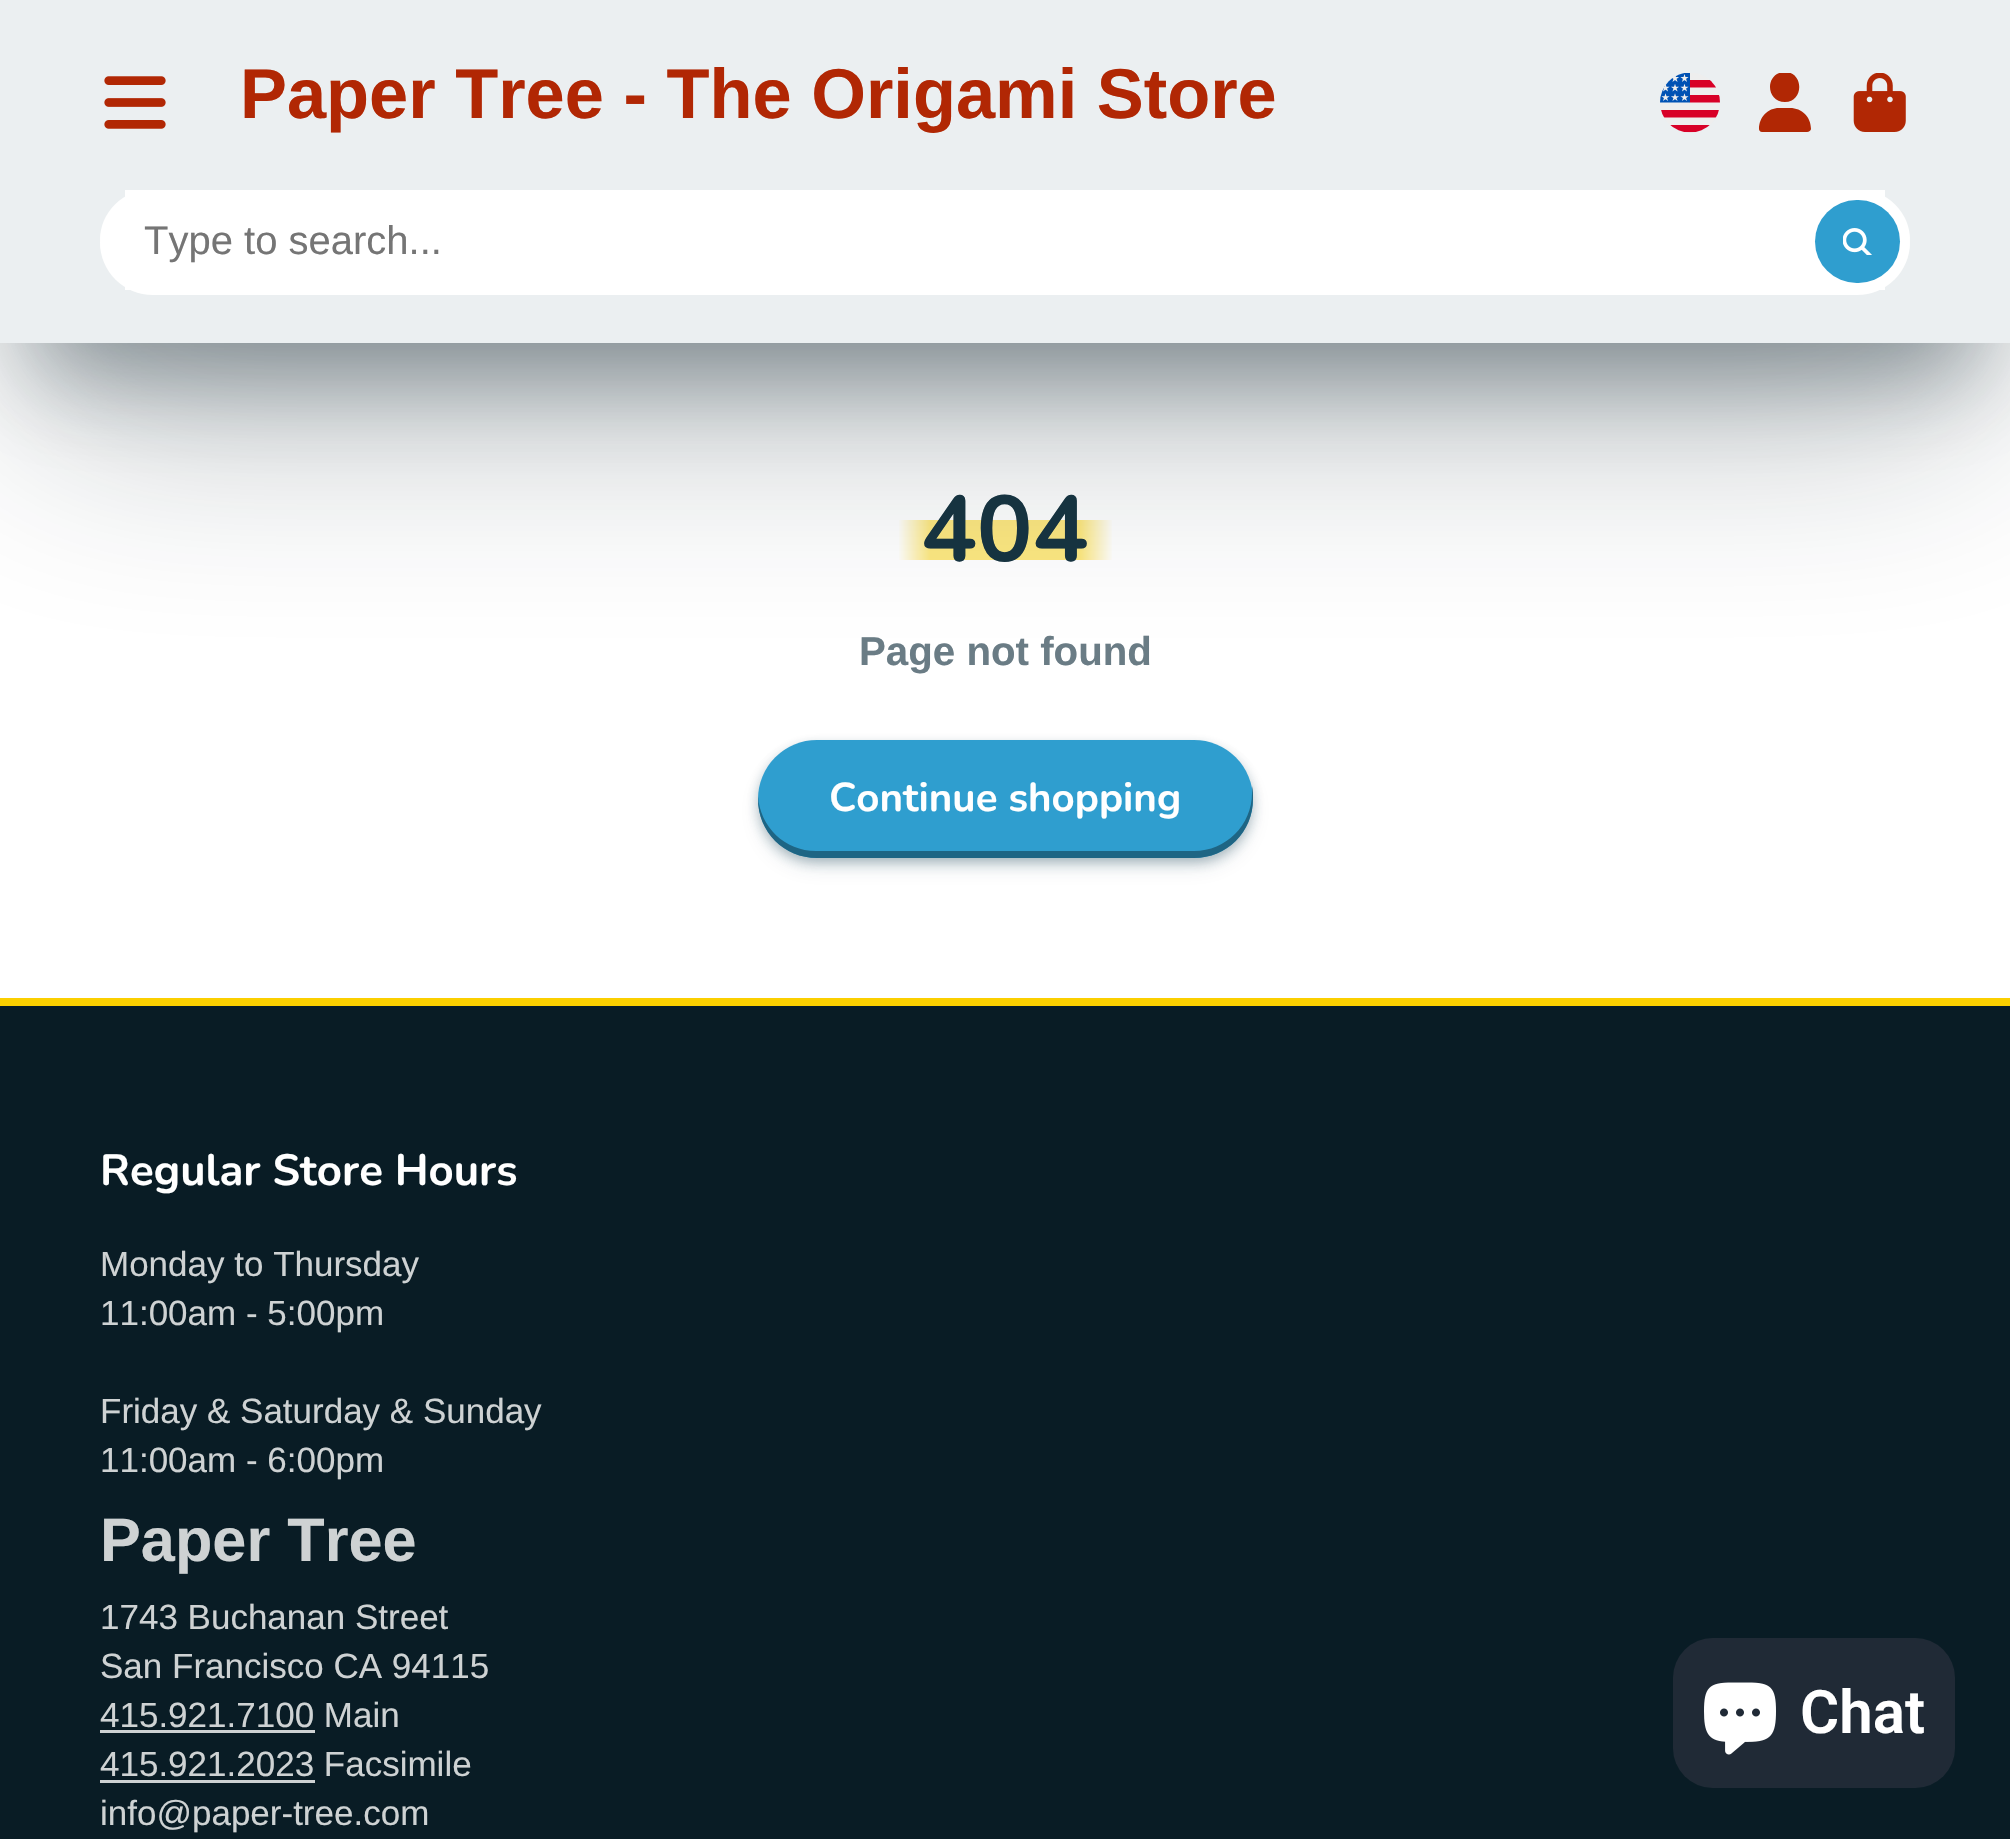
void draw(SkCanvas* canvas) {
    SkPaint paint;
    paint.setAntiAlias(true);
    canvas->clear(0xFFFFFFFF);
    paint.setColor(0x660F242D);
    paint.setMaskFilter(SkMaskFilter::MakeBlur(kNormal_SkBlurStyle, 48));
    canvas->drawRect(SkRect::MakeXYWH(35, 100, 1940, 273), paint);
    paint.setMaskFilter(nullptr);
    {
        const SkColor colors[] = {0xFFFFFFFF, 0xFFFDE780, 0xFFFDE780, 0xFFFFFFFF};
        const float stops[] = {0, 0.15f, 0.85f, 1};
        const SkPoint ends[] = {{898, 540}, {1113, 540}};
        paint.setShader(SkGradientShader::MakeLinear(ends, colors, stops, 4, SkTileMode::kClamp));
        paint.setAlpha(255);
    }
    canvas->drawRect(SkRect::MakeXYWH(899, 520, 213, 40), paint);
    paint.setShader(nullptr);
    paint.setColor(0x26133F52);
    paint.setMaskFilter(SkMaskFilter::MakeBlur(kNormal_SkBlurStyle, 12));
    canvas->drawRoundRect(SkRect::MakeXYWH(763, 758, 485, 105), 52.5f, 52.5f, paint);
    paint.setMaskFilter(nullptr);
    paint.setColor(0x4D133F52);
    paint.setMaskFilter(SkMaskFilter::MakeBlur(kNormal_SkBlurStyle, 6));
    canvas->drawRoundRect(SkRect::MakeXYWH(758, 745, 495, 118), 59, 59, paint);
    paint.setMaskFilter(nullptr);
    paint.setColor(0xFF2F9ECF);
    canvas->drawRoundRect(SkRect::MakeXYWH(758, 740, 495, 118), 59, 59, paint);
    paint.setColor(0x4D0F242D);
    paint.setMaskFilter(SkMaskFilter::MakeBlur(kNormal_SkBlurStyle, 109.5f));
    canvas->drawRect(SkRect::MakeXYWH(35, 145, 1940, 273), paint);
    paint.setMaskFilter(nullptr);
    paint.setColor(0xFFEBEFF1);
    canvas->drawRect(SkRect::MakeXYWH(0, 0, 2010, 343), paint);
    canvas->drawImageRect(SkImages::DeferredFromEncodedData(SkData::MakeFromFileName("img1.png")), SkRect::MakeXYWH(104, 76, 62, 53), SkSamplingOptions());
    SkFont font1(fontMgr->matchFamilyStyle("Liberation Sans", SkFontStyle::Bold()), 70.4f);
    font1.setSubpixel(true);
    paint.setColor(0xFFB12704);
    canvas->drawString("Paper Tree - The Origami Store", 240, 118, font1, paint);
    canvas->drawImageRect(SkImages::DeferredFromEncodedData(SkData::MakeFromFileName("img2.png")), SkRect::MakeXYWH(1660, 73, 60, 60), SkSamplingOptions());
    canvas->save();
    canvas->clipRect(SkRect::MakeXYWH(1755, 73, 59, 59));
    canvas->drawPath(SkPathBuilder().moveTo(1785, 102).cubicTo(1804, 102, 1804, 72, 1785, 72).cubicTo(1765, 72, 1765, 102, 1785, 102).close().moveTo(1779, 108).cubicTo(1768, 108, 1759, 117, 1759, 129).cubicTo(1759, 130, 1760, 132, 1762, 132).lineTo(1807, 132).cubicTo(1809, 132, 1811, 130, 1811, 129).cubicTo(1811, 117, 1802, 108, 1790, 108).close().detach(), paint);
    canvas->restore();
    canvas->drawImageRect(SkImages::DeferredFromEncodedData(SkData::MakeFromFileName("img3.png")), SkRect::MakeXYWH(1853, 73, 53, 59), SkSamplingOptions());
    paint.setColor(0xFFFFFFFF);
    canvas->drawRoundRect(SkRect::MakeXYWH(100, 190, 1810, 100), 50, 50, paint);
    canvas->drawRect(SkRect::MakeXYWH(125, 190, 1760, 100), paint);
    canvas->drawRoundRect(SkRect::MakeXYWH(100, 190, 1810, 105), 52.5f, 52.5f, paint);
    SkFont font2(fontMgr->matchFamilyStyle("Liberation Sans", SkFontStyle::Normal()), 40);
    font2.setSubpixel(true);
    paint.setColor(0xFF757575);
    canvas->drawString("Type to search...", 144, 254, font2, paint);
    paint.setColor(0xFF2F9ECF);
    canvas->drawRoundRect(SkRect::MakeXYWH(1815, 200, 85, 83), 41.5f, 41.5f, paint);
    canvas->drawImageRect(SkImages::DeferredFromEncodedData(SkData::MakeFromFileName("img4.png")), SkRect::MakeXYWH(1843, 228, 29, 27), SkSamplingOptions());
    SkFont font3(fontMgr->matchFamilyStyle("Nunito", SkFontStyle::Bold()), 93);
    font3.setSubpixel(true);
    paint.setColor(0xFF163340);
    canvas->drawString("404", 921, 561, font3, paint);
    SkFont font4(fontMgr->matchFamilyStyle("Liberation Sans", SkFontStyle::Bold()), 40.25f);
    font4.setSubpixel(true);
    paint.setColor(0xFF6A7C85);
    canvas->drawString("Page not found", 859, 665, font4, paint);
    paint.setColor(0xFF1E6584);
    canvas->drawPath(SkPathBuilder().moveTo(758, 796).lineTo(758, 799).cubicTo(758, 832, 784, 858, 817, 858).lineTo(1194, 858).cubicTo(1227, 858, 1253, 832, 1253, 799).cubicTo(1253, 795, 1253, 790, 1252, 786).lineTo(1252, 793).cubicTo(1252, 825, 1226, 851, 1194, 851).lineTo(816, 851).cubicTo(785, 851, 760, 827, 758, 796).close().detach(), paint);
    SkFont font5(fontMgr->matchFamilyStyle("Nunito", SkFontStyle::Bold()), 40.25f);
    font5.setSubpixel(true);
    paint.setColor(0xFFFFFFFF);
    canvas->drawString("Continue shopping", 829, 811, font5, paint);
    paint.setColor(0xFF091C25);
    canvas->drawRect(SkRect::MakeXYWH(0, 1006, 2010, 833), paint);
    paint.setColor(0xFFFBCF00);
    canvas->drawRect(SkRect::MakeXYWH(0, 998, 2010, 8), paint);
    SkFont font6(fontMgr->matchFamilyStyle("Nunito", SkFontStyle::Bold()), 43.75f);
    font6.setSubpixel(true);
    paint.setColor(0xFFFFFFFF);
    canvas->drawString("Regular Store Hours", 100, 1185, font6, paint);
    SkFont font7(fontMgr->matchFamilyStyle("Liberation Sans", SkFontStyle::Normal()), 35);
    font7.setSubpixel(true);
    paint.setColor(0xFFCED2D3);
    canvas->drawString("Monday to Thursday", 100, 1276, font7, paint);
    canvas->drawString("11:00am - 5:00pm", 100, 1325, font7, paint);
    canvas->drawString("Friday & Saturday & Sunday", 100, 1423, font7, paint);
    canvas->drawString("11:00am - 6:00pm", 100, 1472, font7, paint);
    SkFont font8(fontMgr->matchFamilyStyle("Liberation Sans", SkFontStyle::Bold()), 61.25f);
    font8.setSubpixel(true);
    canvas->drawString("Paper Tree", 100, 1561, font8, paint);
    canvas->drawString("1743 Buchanan Street", 100, 1629, font7, paint);
    canvas->drawString("San Francisco CA 94115", 100, 1678, font7, paint);
    canvas->drawString("415.921.7100 Main", 100, 1727, font7, paint);
    canvas->drawRect(SkRect::MakeXYWH(100, 1730, 215, 3), paint);
    canvas->drawString("415.921.2023 Facsimile", 100, 1776, font7, paint);
    canvas->drawRect(SkRect::MakeXYWH(100, 1780, 215, 3), paint);
    canvas->drawString("info@paper-tree.com", 100, 1825, font7, paint);
    paint.setColor(0xFF202A36);
    canvas->drawRoundRect(SkRect::MakeXYWH(1673, 1638, 282, 150), 40, 40, paint);
    canvas->drawImageRect(SkImages::DeferredFromEncodedData(SkData::MakeFromFileName("img5.png")), SkRect::MakeXYWH(1704, 1682, 72, 73), SkSamplingOptions());
    SkFont font9(fontMgr->matchFamilyStyle("Roboto", SkFontStyle(600, SkFontStyle::kNormal_Width, SkFontStyle::kUpright_Slant)), 60);
    font9.setSubpixel(true);
    paint.setColor(0xFFFFFFFF);
    canvas->drawString("Chat", 1800, 1733, font9, paint);
}
